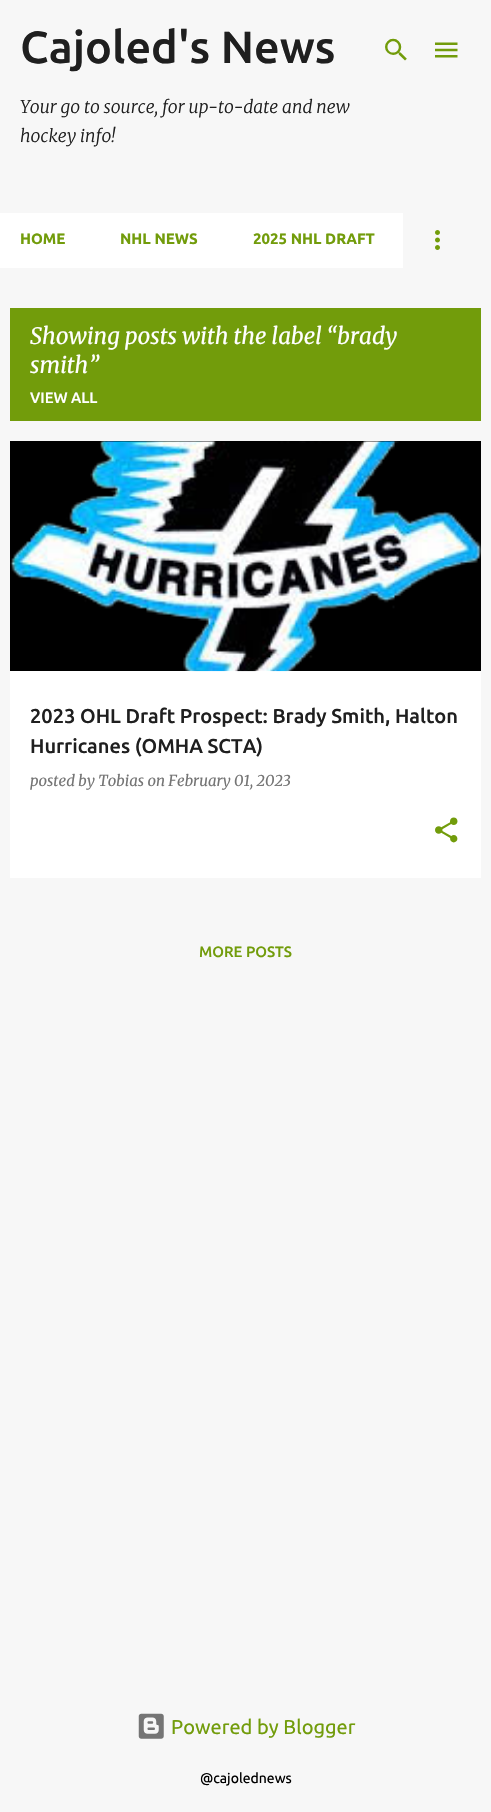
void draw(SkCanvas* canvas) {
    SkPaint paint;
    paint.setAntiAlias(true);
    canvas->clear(0xFFF7F7F7);
    SkFont font1(fontMgr->matchFamilyStyle("Ubuntu", SkFontStyle(500, SkFontStyle::kNormal_Width, SkFontStyle::kUpright_Slant)), 45);
    font1.setSubpixel(true);
    paint.setColor(0xFF1F1F1F);
    canvas->drawString("Cajoled's News", 20, 63, font1, paint);
    SkFont font2(fontMgr->matchFamilyStyle("Merriweather", SkFontStyle(300, SkFontStyle::kNormal_Width, SkFontStyle::kItalic_Slant)), 17.5f);
    font2.setSubpixel(true);
    canvas->drawString("Your go to source, for up-to-date and new", 20, 113, font2, paint);
    canvas->drawString("hockey info!", 20, 142, font2, paint);
    canvas->drawImageRect(SkImages::DeferredFromEncodedData(SkData::MakeFromFileName("img1.png")), SkRect::MakeXYWH(385, 38, 22, 23), SkSamplingOptions());
    canvas->drawImageRect(SkImages::DeferredFromEncodedData(SkData::MakeFromFileName("img2.png")), SkRect::MakeXYWH(435, 42, 23, 16), SkSamplingOptions());
    paint.setColor(0xFFFFFFFF);
    canvas->drawRect(SkRect::MakeXYWH(0, 213, 403, 55), paint);
    SkFont font3(fontMgr->matchFamilyStyle("Ubuntu", SkFontStyle::Bold()), 15);
    font3.setSubpixel(true);
    paint.setColor(0xFF729C0B);
    canvas->drawString("HOME", 20, 244, font3, paint);
    canvas->drawString("NHL NEWS", 120, 244, font3, paint);
    canvas->drawString("2025 NHL DRAFT", 253, 244, font3, paint);
    canvas->drawImageRect(SkImages::DeferredFromEncodedData(SkData::MakeFromFileName("img3.png")), SkRect::MakeXYWH(435, 230, 5, 20), SkSamplingOptions());
    canvas->drawRect(SkRect::MakeXYWH(10, 308, 471, 113), paint);
    SkFont font4(fontMgr->matchFamilyStyle("Merriweather", SkFontStyle::Italic()), 22.5f);
    font4.setSubpixel(true);
    paint.setColor(0xFFFFFFFF);
    canvas->drawString("Showing posts with the label “brady", 30, 344, font4, paint);
    canvas->drawString("smith”", 30, 373, font4, paint);
    SkFont font5(fontMgr->matchFamilyStyle("Ubuntu", SkFontStyle(500, SkFontStyle::kNormal_Width, SkFontStyle::kUpright_Slant)), 15);
    font5.setSubpixel(true);
    canvas->drawString("VIEW ALL", 30, 403, font5, paint);
    canvas->drawRect(SkRect::MakeXYWH(10, 671, 471, 207), paint);
    paint.setColor(0xFF000000);
    canvas->drawRect(SkRect::MakeXYWH(10, 441, 471, 230), paint);
    canvas->drawImageRect(SkImages::DeferredFromEncodedData(SkData::MakeFromFileName("img4.png")), SkRect::MakeXYWH(10, 441, 471, 231), SkSamplingOptions());
    SkFont font6(fontMgr->matchFamilyStyle("Ubuntu", SkFontStyle(500, SkFontStyle::kNormal_Width, SkFontStyle::kUpright_Slant)), 20);
    font6.setSubpixel(true);
    paint.setColor(0xFF1F1F1F);
    canvas->drawString("2023 OHL Draft Prospect: Brady Smith, Halton", 30, 723, font6, paint);
    canvas->drawString("Hurricanes (OMHA SCTA)", 30, 753, font6, paint);
    SkFont font7(fontMgr->matchFamilyStyle("Merriweather", SkFontStyle::Italic()), 15);
    font7.setSubpixel(true);
    paint.setColor(0xFF757575);
    canvas->drawString("posted by Tobias on February 01, 2023", 30, 786, font7, paint);
    canvas->drawImageRect(SkImages::DeferredFromEncodedData(SkData::MakeFromFileName("img5.png")), SkRect::MakeXYWH(435, 817, 23, 26), SkSamplingOptions());
    paint.setColor(0xFF729C0B);
    canvas->drawString("MORE POSTS", 199, 957, font5, paint);
    canvas->drawImageRect(SkImages::DeferredFromEncodedData(SkData::MakeFromFileName("img6.png")), SkRect::MakeXYWH(138, 1713, 26, 26), SkSamplingOptions());
    SkFont font8(fontMgr->matchFamilyStyle("Ubuntu", SkFontStyle::Normal()), 20);
    font8.setSubpixel(true);
    canvas->drawString("Powered by Blogger", 171, 1734, font8, paint);
    SkFont font9(fontMgr->matchFamilyStyle("Ubuntu", SkFontStyle::Normal()), 14);
    font9.setSubpixel(true);
    paint.setColor(0xFF000000);
    canvas->drawString("@cajolednews", 200, 1783, font9, paint);
}
